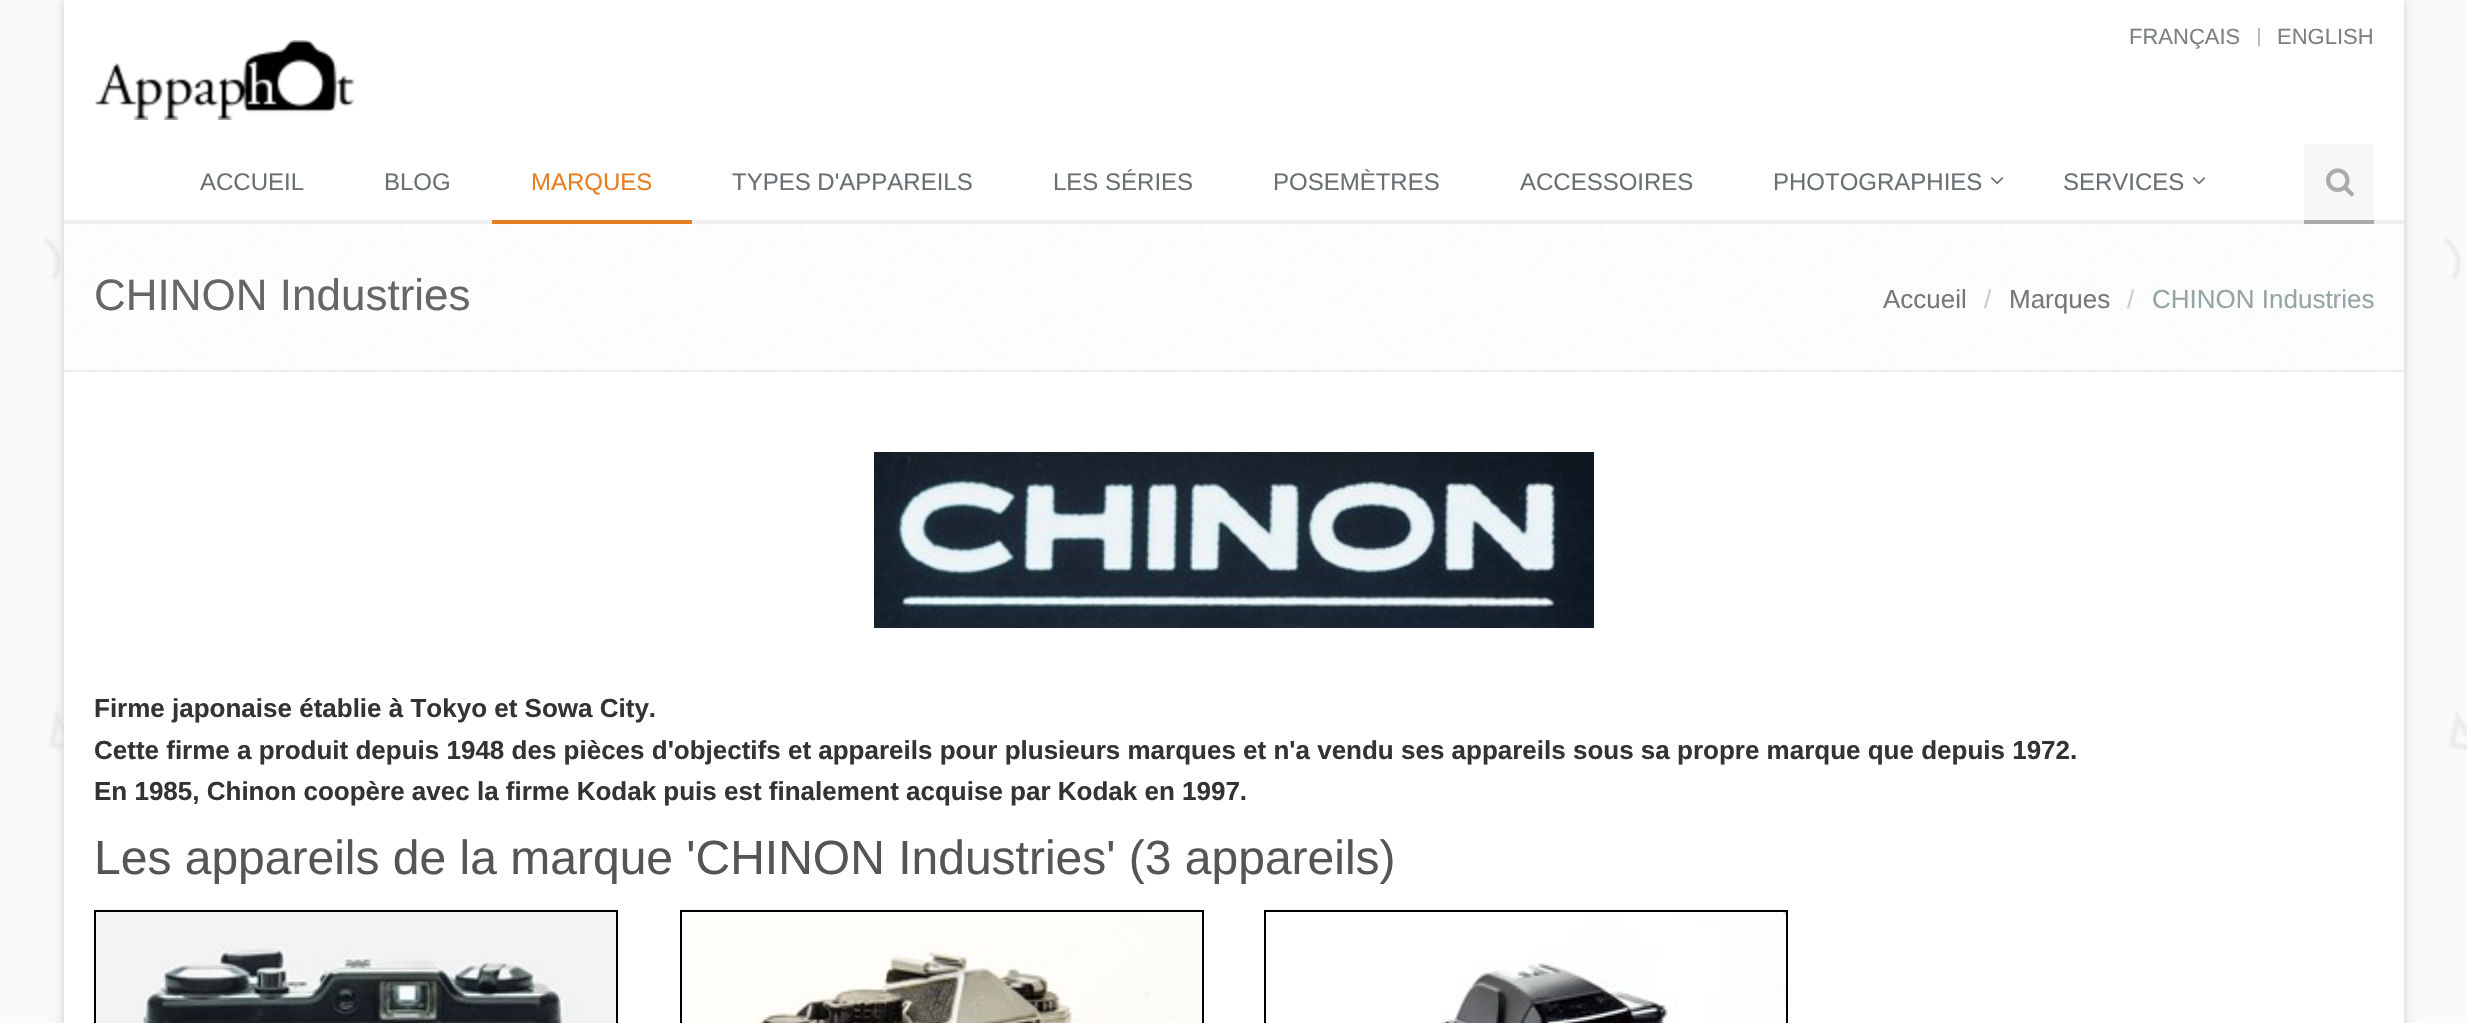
void draw(SkCanvas* canvas) {
    SkPaint paint;
    paint.setAntiAlias(true);
    canvas->clear(0xFFFFFFFF);
    canvas->drawImageRect(SkImages::DeferredFromEncodedData(SkData::MakeFromFileName("img1.png")), SkRect::MakeXYWH(0, 0, 2467, 1023), SkSamplingOptions());
    paint.setColor(0xFFCCCCCC);
    paint.setMaskFilter(SkMaskFilter::MakeBlur(kNormal_SkBlurStyle, 5));
    canvas->drawRect(SkRect::MakeXYWH(64, 0, 2340, 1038), paint);
    paint.setMaskFilter(nullptr);
    paint.setColor(0xFFFFFFFF);
    canvas->drawRect(SkRect::MakeXYWH(64, 0, 2340, 1023), paint);
    paint.setColor(0xFFEEEEEE);
    canvas->drawRect(SkRect::MakeXYWH(64, 220, 2340, 4), paint);
    canvas->drawImageRect(SkImages::DeferredFromEncodedData(SkData::MakeFromFileName("img2.png")), SkRect::MakeXYWH(95, 40, 259, 80), SkSamplingOptions());
    SkFont font1(fontMgr->matchFamilyStyle("Liberation Sans", SkFontStyle::Normal()), 22);
    font1.setSubpixel(true);
    paint.setColor(0xFF7C8082);
    canvas->drawString("FRANÇAIS", 2129, 44, font1, paint);
    paint.setColor(0xFFBBBBBB);
    canvas->drawRect(SkRect::MakeXYWH(2258, 28, 2, 18), paint);
    paint.setColor(0xFF7C8082);
    canvas->drawString("ENGLISH", 2277, 44, font1, paint);
    SkFont font2(fontMgr->matchFamilyStyle("Liberation Sans", SkFontStyle::Normal()), 24);
    font2.setSubpixel(true);
    paint.setColor(0xFF687074);
    canvas->drawString("ACCUEIL", 200, 190, font2, paint);
    canvas->drawString("BLOG", 384, 190, font2, paint);
    paint.setColor(0xFFE67E22);
    canvas->drawRect(SkRect::MakeXYWH(492, 220, 200, 4), paint);
    canvas->drawString("MARQUES", 531, 190, font2, paint);
    paint.setColor(0xFF687074);
    canvas->drawString("TYPES D'APPAREILS", 732, 190, font2, paint);
    canvas->drawString("LES SÉRIES", 1053, 190, font2, paint);
    canvas->drawString("POSEMÈTRES", 1273, 190, font2, paint);
    canvas->drawString("ACCESSOIRES", 1520, 190, font2, paint);
    canvas->drawString("PHOTOGRAPHIES", 1773, 190, font2, paint);
    canvas->drawImageRect(SkImages::DeferredFromEncodedData(SkData::MakeFromFileName("img3.png")), SkRect::MakeXYWH(1991, 177, 13, 8), SkSamplingOptions());
    canvas->drawString("SERVICES", 2063, 190, font2, paint);
    canvas->drawImageRect(SkImages::DeferredFromEncodedData(SkData::MakeFromFileName("img3.png")), SkRect::MakeXYWH(2193, 177, 13, 8), SkSamplingOptions());
    paint.setColor(0xFFF7F7F7);
    canvas->drawRect(SkRect::MakeXYWH(2304, 144, 70, 76), paint);
    paint.setColor(0xFFAAAAAA);
    canvas->drawRect(SkRect::MakeXYWH(2304, 220, 70, 4), paint);
    canvas->drawImageRect(SkImages::DeferredFromEncodedData(SkData::MakeFromFileName("img4.png")), SkRect::MakeXYWH(2326, 168, 28, 29), SkSamplingOptions());
    canvas->drawImageRect(SkImages::DeferredFromEncodedData(SkData::MakeFromFileName("img5.png")), SkRect::MakeXYWH(64, 224, 2340, 146), SkSamplingOptions());
    paint.setColor(0xFFEEEEEE);
    canvas->drawRect(SkRect::MakeXYWH(64, 370, 2340, 2), paint);
    SkFont font3(fontMgr->matchFamilyStyle("Liberation Sans", SkFontStyle::Normal()), 44);
    font3.setSubpixel(true);
    paint.setColor(0xFF666666);
    canvas->drawString("CHINON Industries", 94, 310, font3, paint);
    SkFont font4(fontMgr->matchFamilyStyle("Liberation Sans", SkFontStyle::Normal()), 26);
    font4.setSubpixel(true);
    paint.setColor(0xFF777777);
    canvas->drawString("Accueil", 1883, 308, font4, paint);
    paint.setColor(0xFFCCCCCC);
    canvas->drawString("/", 1984, 308, font4, paint);
    paint.setColor(0xFF777777);
    canvas->drawString("Marques", 2009, 308, font4, paint);
    paint.setColor(0xFFCCCCCC);
    canvas->drawString("/", 2127, 308, font4, paint);
    paint.setColor(0xFF95A5A6);
    canvas->drawString("CHINON Industries", 2152, 308, font4, paint);
    canvas->drawImageRect(SkImages::DeferredFromEncodedData(SkData::MakeFromFileName("img6.png")), SkRect::MakeXYWH(874, 452, 720, 176), SkSamplingOptions());
    SkFont font5(fontMgr->matchFamilyStyle("Liberation Sans", SkFontStyle::Bold()), 26);
    font5.setSubpixel(true);
    paint.setColor(0xFF333333);
    canvas->drawString("Firme japonaise établie à Tokyo et Sowa City.", 94, 717, font5, paint);
    canvas->drawString("Cette firme a produit depuis 1948 des pièces d'objectifs et appareils pour plusieurs marques et n'a vendu ses appareils sous sa propre marque que depuis 1972.", 94, 759, font5, paint);
    canvas->drawString("En 1985, Chinon coopère avec la firme Kodak puis est finalement acquise par Kodak en 1997.", 94, 800, font5, paint);
    SkFont font6(fontMgr->matchFamilyStyle("Liberation Sans", SkFontStyle::Normal()), 48);
    font6.setSubpixel(true);
    paint.setColor(0xFF555555);
    canvas->drawString("Les appareils de la marque 'CHINON Industries' (3 appareils)", 94, 874, font6, paint);
    paint.setStyle(SkPaint::kStroke_Style);
    paint.setStrokeWidth(2);
    paint.setColor(0xFF000000);
    canvas->drawRect(SkRect::MakeXYWH(95, 911, 522, 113), paint);
    canvas->drawImageRect(SkImages::DeferredFromEncodedData(SkData::MakeFromFileName("img7.png")), SkRect::MakeXYWH(96, 912, 520, 111), SkSamplingOptions());
    canvas->drawRect(SkRect::MakeXYWH(681, 911, 522, 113), paint);
    canvas->drawImageRect(SkImages::DeferredFromEncodedData(SkData::MakeFromFileName("img8.png")), SkRect::MakeXYWH(682, 912, 520, 111), SkSamplingOptions());
    canvas->drawRect(SkRect::MakeXYWH(1265, 911, 522, 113), paint);
    canvas->drawImageRect(SkImages::DeferredFromEncodedData(SkData::MakeFromFileName("img9.png")), SkRect::MakeXYWH(1440, 912, 346, 111), SkSamplingOptions());
}
